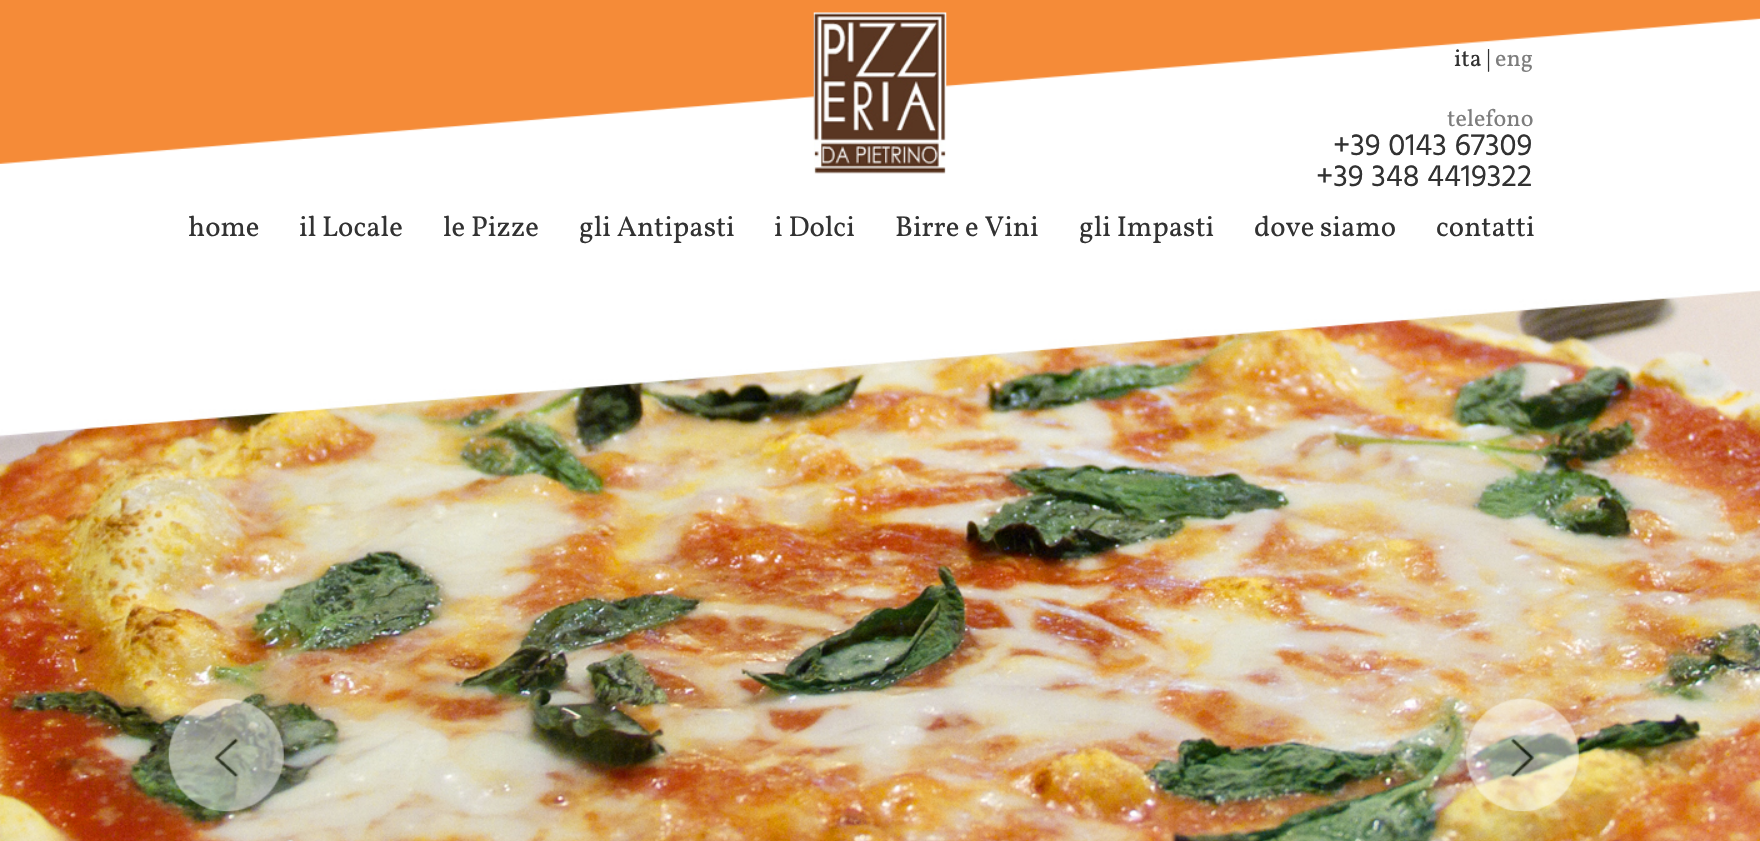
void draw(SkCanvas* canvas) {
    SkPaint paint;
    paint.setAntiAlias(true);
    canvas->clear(0xFFFFFFFF);
    canvas->drawImageRect(SkImages::DeferredFromEncodedData(SkData::MakeFromFileName("img1.png")), SkRect::MakeXYWH(0, 0, 1760, 164), SkSamplingOptions());
    canvas->drawImageRect(SkImages::DeferredFromEncodedData(SkData::MakeFromFileName("img2.png")), SkRect::MakeXYWH(813, 12, 134, 162), SkSamplingOptions());
    SkFont font1(fontMgr->matchFamilyStyle("Vollkorn", SkFontStyle::Normal()), 24);
    font1.setSubpixel(true);
    paint.setColor(0xFF323232);
    canvas->drawString("ita |", 1454, 66, font1, paint);
    paint.setColor(0xFF7D7D7D);
    canvas->drawString("eng", 1495, 66, font1, paint);
    canvas->drawString("telefono", 1447, 126, font1, paint);
    SkFont font2(fontMgr->matchFamilyStyle("Hind", SkFontStyle::Normal()), 31.25f);
    font2.setSubpixel(true);
    paint.setColor(0xFF323232);
    canvas->drawString("+39 0143 67309", 1333, 155, font2, paint);
    canvas->drawString("+39 348 4419322", 1316, 186, font2, paint);
    SkFont font3(fontMgr->matchFamilyStyle("Vollkorn", SkFontStyle::Normal()), 28.75f);
    font3.setSubpixel(true);
    canvas->drawString("home", 188, 236, font3, paint);
    canvas->drawString("il Locale", 299, 236, font3, paint);
    canvas->drawString("le Pizze", 443, 236, font3, paint);
    canvas->drawString("gli Antipasti", 579, 236, font3, paint);
    canvas->drawString("i Dolci", 774, 236, font3, paint);
    canvas->drawString("Birre e Vini", 895, 236, font3, paint);
    canvas->drawString("gli Impasti", 1079, 236, font3, paint);
    canvas->drawString("dove siamo", 1254, 236, font3, paint);
    canvas->drawString("contatti", 1436, 236, font3, paint);
    canvas->drawImageRect(SkImages::DeferredFromEncodedData(SkData::MakeFromFileName("img3.png")), SkRect::MakeXYWH(0, 290, 1760, 551), SkSamplingOptions());
    canvas->drawImageRect(SkImages::DeferredFromEncodedData(SkData::MakeFromFileName("img4.png")), SkRect::MakeXYWH(168, 698, 116, 114), SkSamplingOptions());
    canvas->drawImageRect(SkImages::DeferredFromEncodedData(SkData::MakeFromFileName("img5.png")), SkRect::MakeXYWH(1466, 698, 113, 114), SkSamplingOptions());
}
